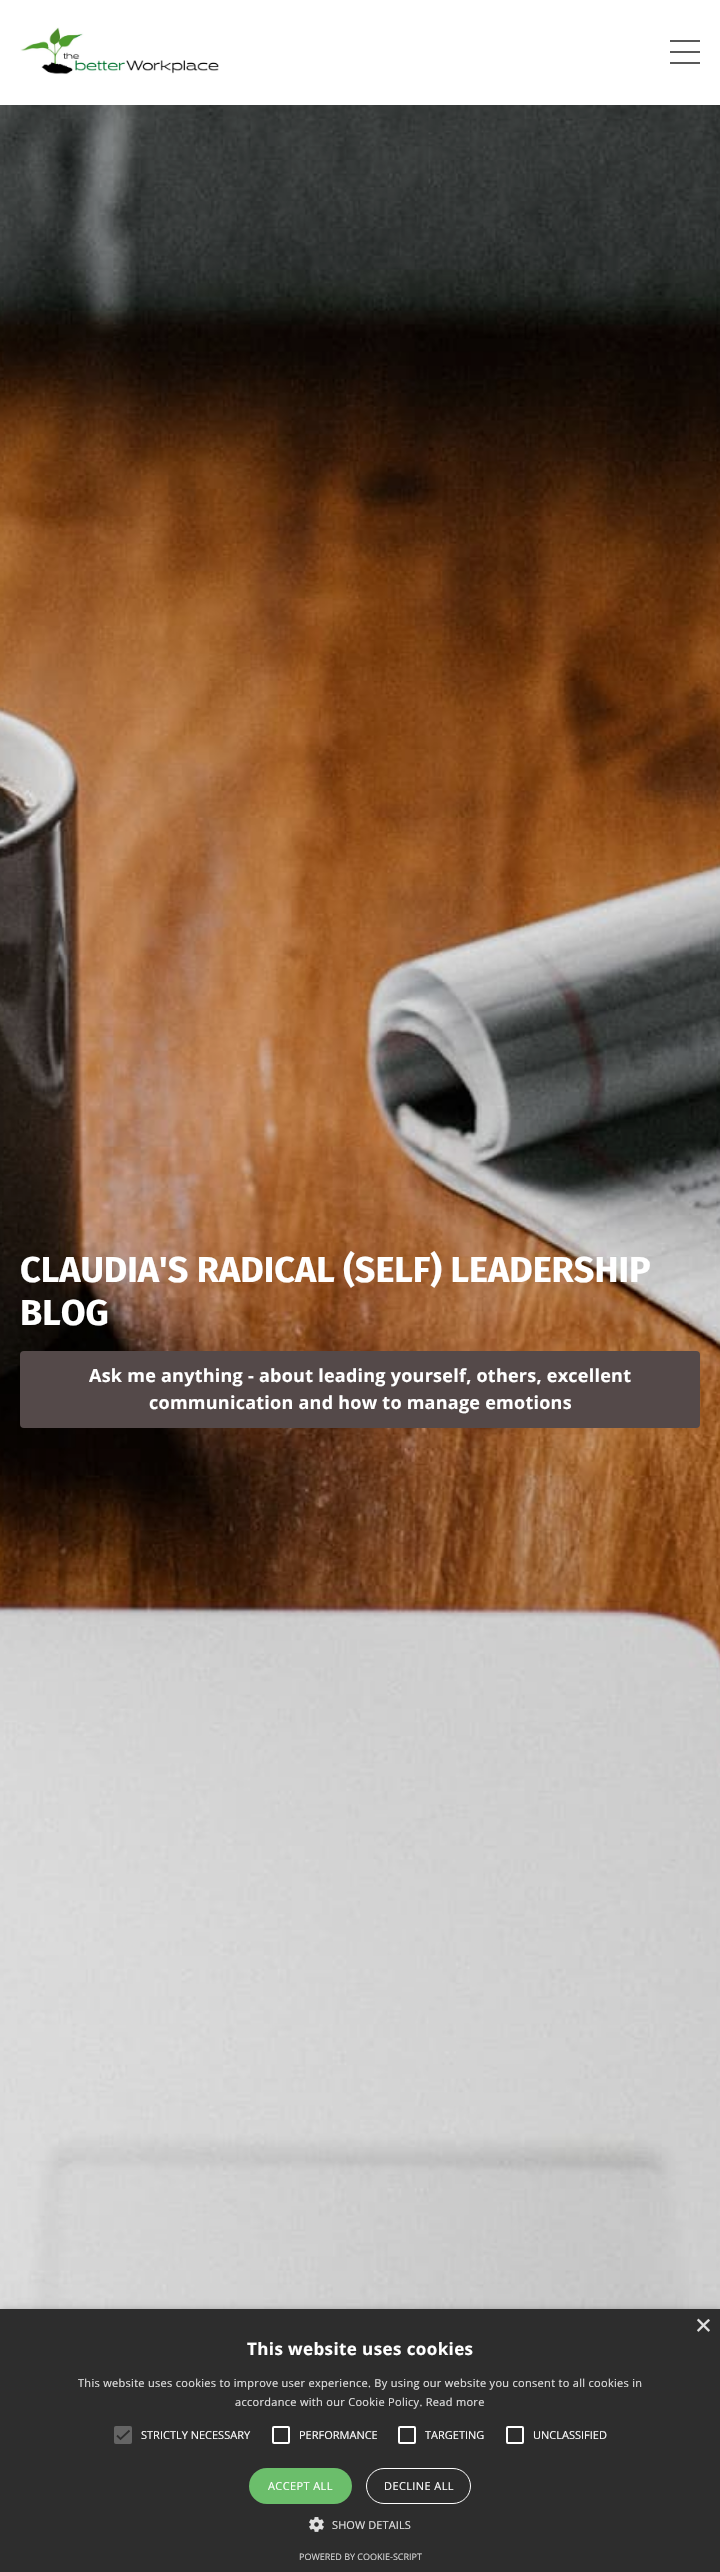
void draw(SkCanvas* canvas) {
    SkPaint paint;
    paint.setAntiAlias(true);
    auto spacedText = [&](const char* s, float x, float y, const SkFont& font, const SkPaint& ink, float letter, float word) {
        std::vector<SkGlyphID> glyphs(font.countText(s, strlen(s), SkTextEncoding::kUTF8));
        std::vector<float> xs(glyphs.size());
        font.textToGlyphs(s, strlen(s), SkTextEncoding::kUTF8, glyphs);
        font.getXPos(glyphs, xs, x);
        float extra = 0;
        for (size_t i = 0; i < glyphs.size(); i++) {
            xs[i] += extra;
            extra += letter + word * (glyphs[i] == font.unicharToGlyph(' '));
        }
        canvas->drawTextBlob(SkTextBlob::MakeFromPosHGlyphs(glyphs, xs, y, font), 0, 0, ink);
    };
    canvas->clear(0xFFFFFFFF);
    canvas->drawImageRect(SkImages::DeferredFromEncodedData(SkData::MakeFromFileName("img1.png")), SkRect::MakeXYWH(20, 27, 199, 48), SkSamplingOptions());
    paint.setColor(0xFF595959);
    canvas->drawRect(SkRect::MakeXYWH(670, 40, 30, 2), paint);
    canvas->drawRect(SkRect::MakeXYWH(670, 51, 30, 2), paint);
    canvas->drawRect(SkRect::MakeXYWH(670, 62, 30, 2), paint);
    canvas->drawImageRect(SkImages::DeferredFromEncodedData(SkData::MakeFromFileName("img2.png")), SkRect::MakeXYWH(0, 105, 720, 2204), SkSamplingOptions());
    SkFont font1(fontMgr->matchFamilyStyle("Fira Sans", SkFontStyle::Bold()), 36);
    font1.setSubpixel(true);
    paint.setColor(0xFFFFFFFF);
    canvas->drawString("CLAUDIA'S RADICAL (SELF) LEADERSHIP", 20, 1282, font1, paint);
    canvas->drawString("BLOG", 20, 1325, font1, paint);
    paint.setColor(0xFF544949);
    canvas->drawRoundRect(SkRect::MakeXYWH(21, 1352, 678, 75), 3, 3, paint);
    paint.setStyle(SkPaint::kStroke_Style);
    paint.setStrokeWidth(2);
    canvas->drawRoundRect(SkRect::MakeXYWH(21, 1352, 678, 75), 3, 3, paint);
    SkFont font2(fontMgr->matchFamilyStyle("Open Sans", SkFontStyle::Bold()), 18);
    font2.setSubpixel(true);
    paint.setStyle(SkPaint::kFill_Style);
    paint.setColor(0xFFFFFFFF);
    spacedText("Ask me anything - about leading yourself, others, excellent", 89, 1382, font2, paint, 0.25f, 0);
    spacedText("communication and how to manage emotions", 149, 1409, font2, paint, 0.25f, 0);
    paint.setColor(0x59000000);
    paint.setMaskFilter(SkMaskFilter::MakeBlur(kNormal_SkBlurStyle, 4));
    canvas->drawRect(SkRect::MakeXYWH(1, 2311, 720, 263), paint);
    paint.setMaskFilter(nullptr);
    paint.setColor(0xFF2D2D2D);
    canvas->drawRect(SkRect::MakeXYWH(0, 2309, 720, 263), paint);
    SkFont font3(fontMgr->matchFamilyStyle("Liberation Sans", SkFontStyle::Normal()), 29);
    font3.setSubpixel(true);
    paint.setColor(0xFFE0E0E0);
    canvas->drawString("×", 695, 2335, font3, paint);
    SkFont font4(fontMgr->matchFamilyStyle("Open Sans", SkFontStyle::Bold()), 17);
    font4.setSubpixel(true);
    paint.setColor(0xFFFFFFFF);
    spacedText("This website uses cookies", 247, 2355, font4, paint, 0.4f, 0);
    SkFont font5(fontMgr->matchFamilyStyle("Open Sans", SkFontStyle::Normal()), 11);
    font5.setSubpixel(true);
    paint.setColor(0xFFE0E0E0);
    spacedText("This website uses cookies to improve user experience. By using our website you consent to all cookies in", 78, 2387, font5, paint, 0.3f, 0);
    spacedText("accordance with our Cookie Policy. Read more", 235, 2406, font5, paint, 0.3f, 0);
    paint.setColor(0xFF646464);
    canvas->drawRoundRect(SkRect::MakeXYWH(114, 2426, 18, 18), 2, 2, paint);
    paint.setStyle(SkPaint::kStroke_Style);
    paint.setStrokeWidth(1.8f);
    paint.setColor(0xFF2D2D2D);
    canvas->drawPath(SkPathBuilder().moveTo(117, 2435.5f).lineTo(120.5f, 2439).lineTo(129.5f, 2430.5f).detach(), paint);
    paint.setStyle(SkPaint::kFill_Style);
    paint.setColor(0xFFFFFFFF);
    canvas->drawString("STRICTLY NECESSARY", 141, 2439, font5, paint);
    paint.setStyle(SkPaint::kStroke_Style);
    paint.setStrokeWidth(2);
    canvas->drawRoundRect(SkRect::MakeXYWH(273, 2427, 16, 16), 1, 1, paint);
    paint.setStyle(SkPaint::kFill_Style);
    canvas->drawString("PERFORMANCE", 299, 2439, font5, paint);
    paint.setStyle(SkPaint::kStroke_Style);
    canvas->drawRoundRect(SkRect::MakeXYWH(399, 2427, 16, 16), 1, 1, paint);
    paint.setStyle(SkPaint::kFill_Style);
    canvas->drawString("TARGETING", 425, 2439, font5, paint);
    paint.setStyle(SkPaint::kStroke_Style);
    canvas->drawRoundRect(SkRect::MakeXYWH(507, 2427, 16, 16), 1, 1, paint);
    paint.setStyle(SkPaint::kFill_Style);
    canvas->drawString("UNCLASSIFIED", 533, 2439, font5, paint);
    paint.setColor(0xFF6BBE6B);
    canvas->drawRoundRect(SkRect::MakeXYWH(249, 2468, 103, 36), 18, 18, paint);
    paint.setColor(0xFFFFFFFF);
    spacedText("ACCEPT ALL", 268, 2490, font5, paint, 0.4f, 0);
    paint.setStyle(SkPaint::kStroke_Style);
    paint.setStrokeWidth(1);
    canvas->drawRoundRect(SkRect::MakeXYWH(366.5f, 2468.5f, 104, 35), 17.5f, 17.5f, paint);
    paint.setStyle(SkPaint::kFill_Style);
    spacedText("DECLINE ALL", 384, 2490, font5, paint, 0.4f, 0);
    canvas->drawImageRect(SkImages::DeferredFromEncodedData(SkData::MakeFromFileName("img3.png")), SkRect::MakeXYWH(309, 2517, 15, 15), SkSamplingOptions());
    paint.setColor(0xFFE0E0E0);
    spacedText("SHOW DETAILS", 332, 2529, font5, paint, 0.1f, 0);
    SkFont font6(fontMgr->matchFamilyStyle("Open Sans", SkFontStyle::Normal()), 9);
    font6.setSubpixel(true);
    paint.setColor(0xFFD5D5D5);
    canvas->drawString("POWERED BY COOKIE-SCRIPT", 299, 2560, font6, paint);
}
